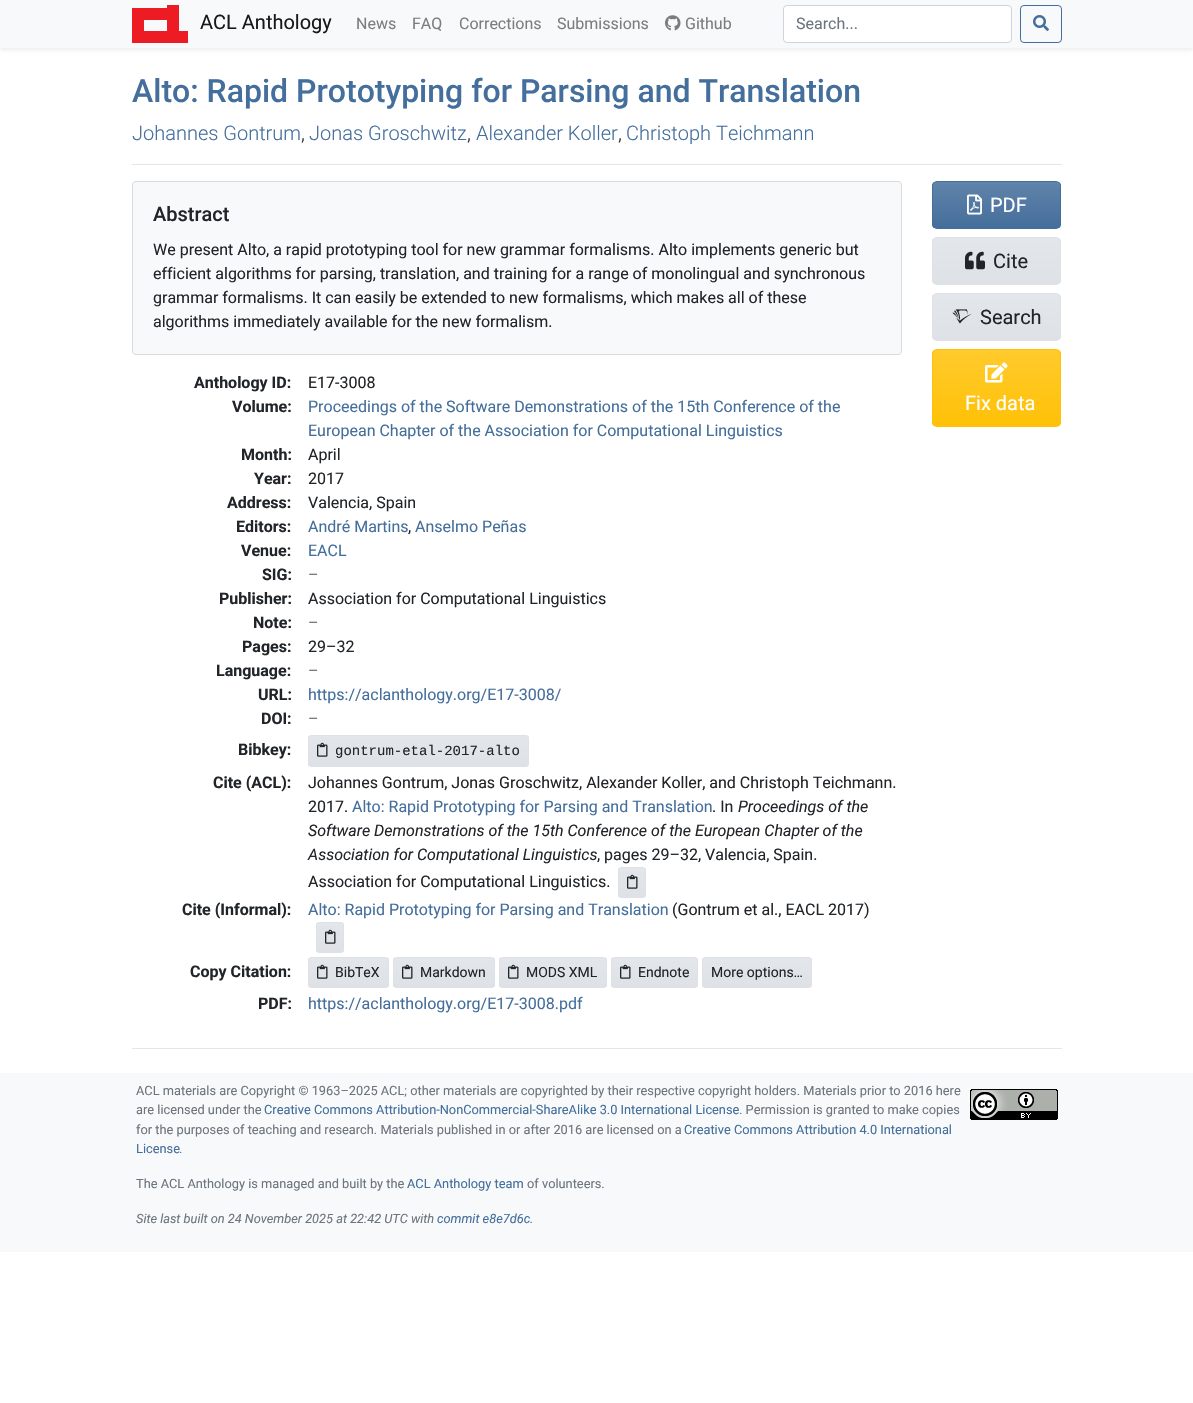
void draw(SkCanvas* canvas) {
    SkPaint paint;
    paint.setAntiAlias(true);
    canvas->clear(0xFFFFFFFF);
    paint.setColor(0x12000000);
    paint.setMaskFilter(SkMaskFilter::MakeBlur(kNormal_SkBlurStyle, 2));
    canvas->drawRect(SkRect::MakeXYWH(0, 2, 1193, 48), paint);
    paint.setMaskFilter(nullptr);
    paint.setColor(0xFFF8F9FA);
    canvas->drawRect(SkRect::MakeXYWH(0, 0, 1193, 48), paint);
    paint.setColor(0xFFED1C24);
    canvas->drawPath(SkPathBuilder(SkPathFillType::kEvenOdd).moveTo(167, 5).lineTo(167, 8).lineTo(132, 8).lineTo(132, 43).lineTo(188, 43).lineTo(188, 31).lineTo(179, 31).lineTo(179, 5).close().moveTo(144, 20).lineTo(167, 20).lineTo(167, 31).lineTo(144, 31).close().detach(), paint);
    SkFont font1(fontMgr->matchFamilyStyle("Roboto", SkFontStyle::Normal()), 20);
    font1.setSubpixel(true);
    paint.setColor(0xFF191919);
    canvas->drawString("ACL Anthology", 200, 29, font1, paint);
    SkFont font2(fontMgr->matchFamilyStyle("Roboto", SkFontStyle::Normal()), 16);
    font2.setSubpixel(true);
    paint.setColor(0xFF7C7D7D);
    canvas->drawString("News", 356, 29, font2, paint);
    canvas->drawString("FAQ", 412, 29, font2, paint);
    canvas->drawString("Corrections", 459, 29, font2, paint);
    canvas->drawString("Submissions", 557, 29, font2, paint);
    canvas->drawImageRect(SkImages::DeferredFromEncodedData(SkData::MakeFromFileName("img1.png")), SkRect::MakeXYWH(665, 15, 16, 16), SkSamplingOptions());
    canvas->drawString("Github", 685, 29, font2, paint);
    paint.setColor(0xFFFFFFFF);
    canvas->drawRoundRect(SkRect::MakeXYWH(783.5f, 5.5f, 228, 37), 3.5f, 3.5f, paint);
    paint.setStyle(SkPaint::kStroke_Style);
    paint.setStrokeWidth(1);
    paint.setColor(0xFFCED4DA);
    canvas->drawRoundRect(SkRect::MakeXYWH(783.5f, 5.5f, 228, 37), 3.5f, 3.5f, paint);
    paint.setStyle(SkPaint::kFill_Style);
    paint.setColor(0xFF6C757D);
    canvas->drawString("Search...", 796, 29, font2, paint);
    paint.setStyle(SkPaint::kStroke_Style);
    paint.setColor(0xFF446E9B);
    canvas->drawRoundRect(SkRect::MakeXYWH(1020.5f, 5.5f, 41, 37), 3.5f, 3.5f, paint);
    canvas->drawImageRect(SkImages::DeferredFromEncodedData(SkData::MakeFromFileName("img2.png")), SkRect::MakeXYWH(1033, 15, 16, 16), SkSamplingOptions());
    SkFont font3(fontMgr->matchFamilyStyle("Roboto", SkFontStyle(500, SkFontStyle::kNormal_Width, SkFontStyle::kUpright_Slant)), 32);
    font3.setSubpixel(true);
    paint.setStyle(SkPaint::kFill_Style);
    canvas->drawString("Alto: Rapid Prototyping for Parsing and Translation", 132, 102, font3, paint);
    SkFont font4(fontMgr->matchFamilyStyle("Roboto", SkFontStyle(300, SkFontStyle::kNormal_Width, SkFontStyle::kUpright_Slant)), 20);
    font4.setSubpixel(true);
    canvas->drawString("Johannes Gontrum", 132, 140, font4, paint);
    paint.setColor(0xFF212529);
    canvas->drawString(",", 301, 140, font4, paint);
    paint.setColor(0xFF446E9B);
    canvas->drawString("Jonas Groschwitz", 309, 140, font4, paint);
    paint.setColor(0xFF212529);
    canvas->drawString(",", 467, 140, font4, paint);
    paint.setColor(0xFF446E9B);
    canvas->drawString("Alexander Koller", 476, 140, font4, paint);
    paint.setColor(0xFF212529);
    canvas->drawString(",", 618, 140, font4, paint);
    paint.setColor(0xFF446E9B);
    canvas->drawString("Christoph Teichmann", 626, 140, font4, paint);
    paint.setColor(0xFFE6E6E6);
    canvas->drawRect(SkRect::MakeXYWH(132, 164, 930, 1), paint);
    paint.setColor(0xFFF8F9FA);
    canvas->drawRoundRect(SkRect::MakeXYWH(132.5f, 181.5f, 769, 173), 3.5f, 3.5f, paint);
    paint.setStyle(SkPaint::kStroke_Style);
    paint.setColor(0xFFD9DADB);
    canvas->drawRoundRect(SkRect::MakeXYWH(132.5f, 181.5f, 769, 173), 3.5f, 3.5f, paint);
    SkFont font5(fontMgr->matchFamilyStyle("Roboto", SkFontStyle(500, SkFontStyle::kNormal_Width, SkFontStyle::kUpright_Slant)), 20);
    font5.setSubpixel(true);
    paint.setStyle(SkPaint::kFill_Style);
    paint.setColor(0xFF212529);
    canvas->drawString("Abstract", 153, 221, font5, paint);
    canvas->drawString("We present Alto, a rapid prototyping tool for new grammar formalisms. Alto implements generic but", 153, 255, font2, paint);
    canvas->drawString("efficient algorithms for parsing, translation, and training for a range of monolingual and synchronous", 153, 279, font2, paint);
    canvas->drawString("grammar formalisms. It can easily be extended to new formalisms, which makes all of these", 153, 303, font2, paint);
    canvas->drawString("algorithms immediately available for the new formalism.", 153, 327, font2, paint);
    SkFont font6(fontMgr->matchFamilyStyle("Roboto", SkFontStyle::Bold()), 16);
    font6.setSubpixel(true);
    canvas->drawString("Anthology ID:", 194, 388, font6, paint);
    canvas->drawString("E17-3008", 308, 388, font2, paint);
    canvas->drawString("Volume:", 232, 412, font6, paint);
    paint.setColor(0xFF446E9B);
    canvas->drawString("Proceedings of the Software Demonstrations of the 15th Conference of the", 308, 412, font2, paint);
    canvas->drawString("European Chapter of the Association for Computational Linguistics", 308, 436, font2, paint);
    paint.setColor(0xFF212529);
    canvas->drawString("Month:", 241, 460, font6, paint);
    canvas->drawString("April", 308, 460, font2, paint);
    canvas->drawString("Year:", 254, 484, font6, paint);
    canvas->drawString("2017", 308, 484, font2, paint);
    canvas->drawString("Address:", 227, 508, font6, paint);
    canvas->drawString("Valencia, Spain", 308, 508, font2, paint);
    canvas->drawString("Editors:", 236, 532, font6, paint);
    paint.setColor(0xFF446E9B);
    canvas->drawString("André Martins", 308, 532, font2, paint);
    paint.setColor(0xFF212529);
    canvas->drawString(",", 408, 532, font2, paint);
    paint.setColor(0xFF446E9B);
    canvas->drawString("Anselmo Peñas", 415, 532, font2, paint);
    paint.setColor(0xFF212529);
    canvas->drawString("Venue:", 241, 556, font6, paint);
    paint.setColor(0xFF446E9B);
    canvas->drawString("EACL", 308, 556, font2, paint);
    paint.setColor(0xFF212529);
    canvas->drawString("SIG:", 262, 580, font6, paint);
    paint.setColor(0xFF6C757D);
    canvas->drawString("–", 308, 580, font2, paint);
    paint.setColor(0xFF212529);
    canvas->drawString("Publisher:", 219, 604, font6, paint);
    canvas->drawString("Association for Computational Linguistics", 308, 604, font2, paint);
    canvas->drawString("Note:", 253, 628, font6, paint);
    paint.setColor(0xFF6C757D);
    canvas->drawString("–", 308, 628, font2, paint);
    paint.setColor(0xFF212529);
    canvas->drawString("Pages:", 242, 652, font6, paint);
    canvas->drawString("29–32", 308, 652, font2, paint);
    canvas->drawString("Language:", 216, 676, font6, paint);
    paint.setColor(0xFF6C757D);
    canvas->drawString("–", 308, 676, font2, paint);
    paint.setColor(0xFF212529);
    canvas->drawString("URL:", 258, 700, font6, paint);
    paint.setColor(0xFF446E9B);
    canvas->drawString("https://aclanthology.org/E17-3008/", 308, 700, font2, paint);
    paint.setColor(0xFF212529);
    canvas->drawString("DOI:", 261, 724, font6, paint);
    paint.setColor(0xFF6C757D);
    canvas->drawString("–", 308, 724, font2, paint);
    paint.setColor(0xFF212529);
    canvas->drawString("Bibkey:", 238, 755, font6, paint);
    canvas->save();
    canvas->clipPath(SkPathBuilder().moveTo(311, 735).lineTo(526, 735).cubicTo(527.5f, 735, 529, 736.5f, 529, 738).lineTo(529, 764).cubicTo(529, 765.5f, 527.5f, 767, 526, 767).lineTo(311, 767).cubicTo(309.5f, 767, 308, 765.5f, 308, 764).lineTo(308, 738).cubicTo(308, 736.5f, 309.5f, 735, 311, 735).close().detach(), true);
    {
        const SkColor colors[] = {0xFFE3E6EA, 0xFFDEE2E6};
        const float stops[] = {0, 1};
        const SkPoint ends[] = {{419, 736}, {419, 766}};
        paint.setShader(SkGradientShader::MakeLinear(ends, colors, stops, 2, SkTileMode::kClamp));
        paint.setAlpha(255);
    }
    canvas->drawRect(SkRect::MakeXYWH(308, 736, 221, 30), paint);
    canvas->restore();
    paint.setStyle(SkPaint::kStroke_Style);
    paint.setShader(nullptr);
    paint.setColor(0xFFDEE2E6);
    canvas->drawRoundRect(SkRect::MakeXYWH(308.5f, 735.5f, 220, 31), 2.5f, 2.5f, paint);
    canvas->drawImageRect(SkImages::DeferredFromEncodedData(SkData::MakeFromFileName("img3.png")), SkRect::MakeXYWH(317, 742, 11, 15), SkSamplingOptions());
    SkFont font7(fontMgr->matchFamilyStyle("Liberation Mono", SkFontStyle::Normal()), 14);
    font7.setSubpixel(true);
    paint.setStyle(SkPaint::kFill_Style);
    paint.setColor(0xFF212529);
    canvas->drawString("gontrum-etal-2017-alto", 335, 755, font7, paint);
    canvas->drawString("Cite (ACL):", 213, 788, font6, paint);
    canvas->drawString("Johannes Gontrum, Jonas Groschwitz, Alexander Koller, and Christoph Teichmann.", 308, 788, font2, paint);
    canvas->drawString("2017.", 308, 812, font2, paint);
    paint.setColor(0xFF446E9B);
    canvas->drawString("Alto: Rapid Prototyping for Parsing and Translation", 352, 812, font2, paint);
    paint.setColor(0xFF212529);
    canvas->drawString(". In", 712, 812, font2, paint);
    SkFont font8(fontMgr->matchFamilyStyle("Roboto", SkFontStyle::Italic()), 16);
    font8.setSubpixel(true);
    canvas->drawString("Proceedings of the", 738, 812, font8, paint);
    canvas->drawString("Software Demonstrations of the 15th Conference of the European Chapter of the", 308, 836, font8, paint);
    canvas->drawString("Association for Computational Linguistics", 308, 860, font8, paint);
    canvas->drawString(", pages 29–32, Valencia, Spain.", 597, 860, font2, paint);
    canvas->drawString("Association for Computational Linguistics.", 308, 887, font2, paint);
    canvas->save();
    canvas->clipPath(SkPathBuilder().moveTo(621, 867).lineTo(643, 867).cubicTo(644.5f, 867, 646, 868.5f, 646, 870).lineTo(646, 895).cubicTo(646, 896.5f, 644.5f, 898, 643, 898).lineTo(621, 898).cubicTo(619.5f, 898, 618, 896.5f, 618, 895).lineTo(618, 870).cubicTo(618, 868.5f, 619.5f, 867, 621, 867).close().detach(), true);
    {
        const SkColor colors[] = {0xFFE3E6EA, 0xFFDEE2E6};
        const float stops[] = {0, 1};
        const SkPoint ends[] = {{632, 868}, {632, 897}};
        paint.setShader(SkGradientShader::MakeLinear(ends, colors, stops, 2, SkTileMode::kClamp));
        paint.setAlpha(255);
    }
    canvas->drawRect(SkRect::MakeXYWH(618, 868, 28, 29), paint);
    canvas->restore();
    paint.setStyle(SkPaint::kStroke_Style);
    paint.setShader(nullptr);
    paint.setColor(0xFFDEE2E6);
    canvas->drawRoundRect(SkRect::MakeXYWH(618.5f, 867.5f, 27, 30), 2.5f, 2.5f, paint);
    canvas->drawImageRect(SkImages::DeferredFromEncodedData(SkData::MakeFromFileName("img4.png")), SkRect::MakeXYWH(627, 874, 11, 15), SkSamplingOptions());
    paint.setStyle(SkPaint::kFill_Style);
    paint.setColor(0xFF212529);
    canvas->drawString("Cite (Informal):", 182, 915, font6, paint);
    paint.setColor(0xFF446E9B);
    canvas->drawString("Alto: Rapid Prototyping for Parsing and Translation", 308, 915, font2, paint);
    paint.setColor(0xFF212529);
    canvas->drawString("(Gontrum et al., EACL 2017)", 672, 915, font2, paint);
    canvas->save();
    canvas->clipPath(SkPathBuilder().moveTo(319, 922).lineTo(341, 922).cubicTo(342.5f, 922, 344, 923.5f, 344, 925).lineTo(344, 950).cubicTo(344, 951.5f, 342.5f, 953, 341, 953).lineTo(319, 953).cubicTo(317.5f, 953, 316, 951.5f, 316, 950).lineTo(316, 925).cubicTo(316, 923.5f, 317.5f, 922, 319, 922).close().detach(), true);
    {
        const SkColor colors[] = {0xFFE3E6EA, 0xFFDEE2E6};
        const float stops[] = {0, 1};
        const SkPoint ends[] = {{330, 923}, {330, 952}};
        paint.setShader(SkGradientShader::MakeLinear(ends, colors, stops, 2, SkTileMode::kClamp));
        paint.setAlpha(255);
    }
    canvas->drawRect(SkRect::MakeXYWH(316, 923, 28, 29), paint);
    canvas->restore();
    paint.setStyle(SkPaint::kStroke_Style);
    paint.setShader(nullptr);
    paint.setColor(0xFFDEE2E6);
    canvas->drawRoundRect(SkRect::MakeXYWH(316.5f, 922.5f, 27, 30), 2.5f, 2.5f, paint);
    canvas->drawImageRect(SkImages::DeferredFromEncodedData(SkData::MakeFromFileName("img4.png")), SkRect::MakeXYWH(325, 929, 11, 15), SkSamplingOptions());
    paint.setStyle(SkPaint::kFill_Style);
    paint.setColor(0xFF212529);
    canvas->drawString("Copy Citation:", 190, 977, font6, paint);
    canvas->save();
    canvas->clipPath(SkPathBuilder().moveTo(311, 957).lineTo(386, 957).cubicTo(387.5f, 957, 389, 958.5f, 389, 960).lineTo(389, 985).cubicTo(389, 986.5f, 387.5f, 988, 386, 988).lineTo(311, 988).cubicTo(309.5f, 988, 308, 986.5f, 308, 985).lineTo(308, 960).cubicTo(308, 958.5f, 309.5f, 957, 311, 957).close().detach(), true);
    {
        const SkColor colors[] = {0xFFE3E6EA, 0xFFDEE2E6};
        const float stops[] = {0, 1};
        const SkPoint ends[] = {{349, 958}, {349, 987}};
        paint.setShader(SkGradientShader::MakeLinear(ends, colors, stops, 2, SkTileMode::kClamp));
        paint.setAlpha(255);
    }
    canvas->drawRect(SkRect::MakeXYWH(308, 958, 81, 29), paint);
    canvas->restore();
    paint.setStyle(SkPaint::kStroke_Style);
    paint.setShader(nullptr);
    paint.setColor(0xFFDEE2E6);
    canvas->drawRoundRect(SkRect::MakeXYWH(308.5f, 957.5f, 80, 30), 2.5f, 2.5f, paint);
    canvas->drawImageRect(SkImages::DeferredFromEncodedData(SkData::MakeFromFileName("img4.png")), SkRect::MakeXYWH(317, 964, 11, 15), SkSamplingOptions());
    SkFont font9(fontMgr->matchFamilyStyle("Roboto", SkFontStyle::Normal()), 14);
    font9.setSubpixel(true);
    paint.setStyle(SkPaint::kFill_Style);
    paint.setColor(0xFF212529);
    canvas->drawString("BibTeX", 335, 977, font9, paint);
    canvas->save();
    canvas->clipPath(SkPathBuilder().moveTo(396, 957).lineTo(492, 957).cubicTo(493.5f, 957, 495, 958.5f, 495, 960).lineTo(495, 985).cubicTo(495, 986.5f, 493.5f, 988, 492, 988).lineTo(396, 988).cubicTo(394.5f, 988, 393, 986.5f, 393, 985).lineTo(393, 960).cubicTo(393, 958.5f, 394.5f, 957, 396, 957).close().detach(), true);
    {
        const SkColor colors[] = {0xFFE3E6EA, 0xFFDEE2E6};
        const float stops[] = {0, 1};
        const SkPoint ends[] = {{444, 958}, {444, 987}};
        paint.setShader(SkGradientShader::MakeLinear(ends, colors, stops, 2, SkTileMode::kClamp));
        paint.setAlpha(255);
    }
    canvas->drawRect(SkRect::MakeXYWH(393, 958, 102, 29), paint);
    canvas->restore();
    paint.setStyle(SkPaint::kStroke_Style);
    paint.setShader(nullptr);
    paint.setColor(0xFFDEE2E6);
    canvas->drawRoundRect(SkRect::MakeXYWH(393.5f, 957.5f, 101, 30), 2.5f, 2.5f, paint);
    canvas->drawImageRect(SkImages::DeferredFromEncodedData(SkData::MakeFromFileName("img4.png")), SkRect::MakeXYWH(402, 964, 11, 15), SkSamplingOptions());
    paint.setStyle(SkPaint::kFill_Style);
    paint.setColor(0xFF212529);
    canvas->drawString("Markdown", 420, 977, font9, paint);
    canvas->save();
    canvas->clipPath(SkPathBuilder().moveTo(502, 957).lineTo(604, 957).cubicTo(605.5f, 957, 607, 958.5f, 607, 960).lineTo(607, 985).cubicTo(607, 986.5f, 605.5f, 988, 604, 988).lineTo(502, 988).cubicTo(500.5f, 988, 499, 986.5f, 499, 985).lineTo(499, 960).cubicTo(499, 958.5f, 500.5f, 957, 502, 957).close().detach(), true);
    {
        const SkColor colors[] = {0xFFE3E6EA, 0xFFDEE2E6};
        const float stops[] = {0, 1};
        const SkPoint ends[] = {{553, 958}, {553, 987}};
        paint.setShader(SkGradientShader::MakeLinear(ends, colors, stops, 2, SkTileMode::kClamp));
        paint.setAlpha(255);
    }
    canvas->drawRect(SkRect::MakeXYWH(499, 958, 108, 29), paint);
    canvas->restore();
    paint.setStyle(SkPaint::kStroke_Style);
    paint.setShader(nullptr);
    paint.setColor(0xFFDEE2E6);
    canvas->drawRoundRect(SkRect::MakeXYWH(499.5f, 957.5f, 107, 30), 2.5f, 2.5f, paint);
    canvas->drawImageRect(SkImages::DeferredFromEncodedData(SkData::MakeFromFileName("img4.png")), SkRect::MakeXYWH(508, 964, 11, 15), SkSamplingOptions());
    paint.setStyle(SkPaint::kFill_Style);
    paint.setColor(0xFF212529);
    canvas->drawString("MODS XML", 526, 977, font9, paint);
    canvas->save();
    canvas->clipPath(SkPathBuilder().moveTo(614, 957).lineTo(695, 957).cubicTo(696.5f, 957, 698, 958.5f, 698, 960).lineTo(698, 985).cubicTo(698, 986.5f, 696.5f, 988, 695, 988).lineTo(614, 988).cubicTo(612.5f, 988, 611, 986.5f, 611, 985).lineTo(611, 960).cubicTo(611, 958.5f, 612.5f, 957, 614, 957).close().detach(), true);
    {
        const SkColor colors[] = {0xFFE3E6EA, 0xFFDEE2E6};
        const float stops[] = {0, 1};
        const SkPoint ends[] = {{655, 958}, {655, 987}};
        paint.setShader(SkGradientShader::MakeLinear(ends, colors, stops, 2, SkTileMode::kClamp));
        paint.setAlpha(255);
    }
    canvas->drawRect(SkRect::MakeXYWH(611, 958, 87, 29), paint);
    canvas->restore();
    paint.setStyle(SkPaint::kStroke_Style);
    paint.setShader(nullptr);
    paint.setColor(0xFFDEE2E6);
    canvas->drawRoundRect(SkRect::MakeXYWH(611.5f, 957.5f, 86, 30), 2.5f, 2.5f, paint);
    canvas->drawImageRect(SkImages::DeferredFromEncodedData(SkData::MakeFromFileName("img4.png")), SkRect::MakeXYWH(620, 964, 11, 15), SkSamplingOptions());
    paint.setStyle(SkPaint::kFill_Style);
    paint.setColor(0xFF212529);
    canvas->drawString("Endnote", 638, 977, font9, paint);
    canvas->save();
    canvas->clipPath(SkPathBuilder().moveTo(705, 957).lineTo(809, 957).cubicTo(810.5f, 957, 812, 958.5f, 812, 960).lineTo(812, 985).cubicTo(812, 986.5f, 810.5f, 988, 809, 988).lineTo(705, 988).cubicTo(703.5f, 988, 702, 986.5f, 702, 985).lineTo(702, 960).cubicTo(702, 958.5f, 703.5f, 957, 705, 957).close().detach(), true);
    {
        const SkColor colors[] = {0xFFE3E6EA, 0xFFDEE2E6};
        const float stops[] = {0, 1};
        const SkPoint ends[] = {{757, 958}, {757, 987}};
        paint.setShader(SkGradientShader::MakeLinear(ends, colors, stops, 2, SkTileMode::kClamp));
        paint.setAlpha(255);
    }
    canvas->drawRect(SkRect::MakeXYWH(702, 958, 110, 29), paint);
    canvas->restore();
    paint.setStyle(SkPaint::kStroke_Style);
    paint.setShader(nullptr);
    paint.setColor(0xFFDEE2E6);
    canvas->drawRoundRect(SkRect::MakeXYWH(702.5f, 957.5f, 109, 30), 2.5f, 2.5f, paint);
    paint.setStyle(SkPaint::kFill_Style);
    paint.setColor(0xFF212529);
    canvas->drawString("More options…", 711, 977, font9, paint);
    canvas->drawString("PDF:", 258, 1009, font6, paint);
    paint.setColor(0xFF446E9B);
    canvas->drawString("https://aclanthology.org/E17-3008.pdf", 308, 1009, font2, paint);
    canvas->save();
    canvas->clipPath(SkPathBuilder().moveTo(937, 181).lineTo(1056, 181).cubicTo(1059, 181, 1061, 183, 1061, 186).lineTo(1061, 224).cubicTo(1061, 227, 1059, 229, 1056, 229).lineTo(937, 229).cubicTo(934, 229, 932, 227, 932, 224).lineTo(932, 186).cubicTo(932, 183, 934, 181, 937, 181).close().detach(), true);
    {
        const SkColor colors[] = {0xFF6084AA, 0xFF446E9B};
        const float stops[] = {0, 1};
        const SkPoint ends[] = {{997, 182}, {997, 228}};
        paint.setShader(SkGradientShader::MakeLinear(ends, colors, stops, 2, SkTileMode::kClamp));
        paint.setAlpha(255);
    }
    canvas->drawRect(SkRect::MakeXYWH(932, 182, 129, 46), paint);
    canvas->restore();
    paint.setStyle(SkPaint::kStroke_Style);
    paint.setShader(nullptr);
    paint.setColor(0xFF446E9B);
    canvas->drawRoundRect(SkRect::MakeXYWH(932.5f, 181.5f, 128, 47), 4.5f, 4.5f, paint);
    canvas->drawImageRect(SkImages::DeferredFromEncodedData(SkData::MakeFromFileName("img5.png")), SkRect::MakeXYWH(967, 194, 15, 21), SkSamplingOptions());
    paint.setStyle(SkPaint::kFill_Style);
    paint.setColor(0xFFFFFFFF);
    canvas->drawString("PDF", 990, 212, font1, paint);
    canvas->save();
    canvas->clipPath(SkPathBuilder().moveTo(937, 237).lineTo(1056, 237).cubicTo(1059, 237, 1061, 239, 1061, 242).lineTo(1061, 280).cubicTo(1061, 283, 1059, 285, 1056, 285).lineTo(937, 285).cubicTo(934, 285, 932, 283, 932, 280).lineTo(932, 242).cubicTo(932, 239, 934, 237, 937, 237).close().detach(), true);
    {
        const SkColor colors[] = {0xFFE3E6EA, 0xFFDEE2E6};
        const float stops[] = {0, 1};
        const SkPoint ends[] = {{997, 238}, {997, 284}};
        paint.setShader(SkGradientShader::MakeLinear(ends, colors, stops, 2, SkTileMode::kClamp));
        paint.setAlpha(255);
    }
    canvas->drawRect(SkRect::MakeXYWH(932, 238, 129, 46), paint);
    canvas->restore();
    paint.setStyle(SkPaint::kStroke_Style);
    paint.setShader(nullptr);
    paint.setColor(0xFFDEE2E6);
    canvas->drawRoundRect(SkRect::MakeXYWH(932.5f, 237.5f, 128, 47), 4.5f, 4.5f, paint);
    canvas->drawImageRect(SkImages::DeferredFromEncodedData(SkData::MakeFromFileName("img6.png")), SkRect::MakeXYWH(965, 251, 20, 19), SkSamplingOptions());
    paint.setStyle(SkPaint::kFill_Style);
    paint.setColor(0xFF212529);
    canvas->drawString("Cite", 993, 268, font1, paint);
    canvas->save();
    canvas->clipPath(SkPathBuilder().moveTo(937, 293).lineTo(1056, 293).cubicTo(1059, 293, 1061, 295, 1061, 298).lineTo(1061, 336).cubicTo(1061, 339, 1059, 341, 1056, 341).lineTo(937, 341).cubicTo(934, 341, 932, 339, 932, 336).lineTo(932, 298).cubicTo(932, 295, 934, 293, 937, 293).close().detach(), true);
    {
        const SkColor colors[] = {0xFFE3E6EA, 0xFFDEE2E6};
        const float stops[] = {0, 1};
        const SkPoint ends[] = {{997, 294}, {997, 340}};
        paint.setShader(SkGradientShader::MakeLinear(ends, colors, stops, 2, SkTileMode::kClamp));
        paint.setAlpha(255);
    }
    canvas->drawRect(SkRect::MakeXYWH(932, 294, 129, 46), paint);
    canvas->restore();
    paint.setStyle(SkPaint::kStroke_Style);
    paint.setShader(nullptr);
    paint.setColor(0xFFDEE2E6);
    canvas->drawRoundRect(SkRect::MakeXYWH(932.5f, 293.5f, 128, 47), 4.5f, 4.5f, paint);
    canvas->drawImageRect(SkImages::DeferredFromEncodedData(SkData::MakeFromFileName("img7.png")), SkRect::MakeXYWH(952, 309, 20, 15), SkSamplingOptions());
    paint.setStyle(SkPaint::kFill_Style);
    paint.setColor(0xFF212529);
    canvas->drawString("Search", 980, 324, font1, paint);
    canvas->save();
    canvas->clipPath(SkPathBuilder().moveTo(937, 349).lineTo(1056, 349).cubicTo(1059, 349, 1061, 351, 1061, 354).lineTo(1061, 422).cubicTo(1061, 425, 1059, 427, 1056, 427).lineTo(937, 427).cubicTo(934, 427, 932, 425, 932, 422).lineTo(932, 354).cubicTo(932, 351, 934, 349, 937, 349).close().detach(), true);
    {
        const SkColor colors[] = {0xFFFFCA2C, 0xFFFFC107};
        const float stops[] = {0, 1};
        const SkPoint ends[] = {{997, 350}, {997, 426}};
        paint.setShader(SkGradientShader::MakeLinear(ends, colors, stops, 2, SkTileMode::kClamp));
        paint.setAlpha(255);
    }
    canvas->drawRect(SkRect::MakeXYWH(932, 350, 129, 76), paint);
    canvas->restore();
    paint.setStyle(SkPaint::kStroke_Style);
    paint.setShader(nullptr);
    paint.setColor(0xFFFFC107);
    canvas->drawRoundRect(SkRect::MakeXYWH(932.5f, 349.5f, 128, 77), 4.5f, 4.5f, paint);
    canvas->drawImageRect(SkImages::DeferredFromEncodedData(SkData::MakeFromFileName("img8.png")), SkRect::MakeXYWH(985, 362, 23, 21), SkSamplingOptions());
    paint.setStyle(SkPaint::kFill_Style);
    paint.setColor(0xFFFFFFFF);
    canvas->drawString("Fix data", 965, 410, font1, paint);
    paint.setColor(0xFFE6E6E6);
    canvas->drawRect(SkRect::MakeXYWH(132, 1048, 930, 1), paint);
    paint.setColor(0xFFF8F9FA);
    canvas->drawRect(SkRect::MakeXYWH(0, 1073, 1193, 179), paint);
    SkFont font10(fontMgr->matchFamilyStyle("Roboto", SkFontStyle::Normal()), 12.8f);
    font10.setSubpixel(true);
    paint.setColor(0xFF6C757D);
    canvas->drawString("ACL materials are Copyright © 1963–2025 ACL; other materials are copyrighted by their respective copyright holders. Materials prior to 2016 here", 136, 1095, font10, paint);
    canvas->drawImageRect(SkImages::DeferredFromEncodedData(SkData::MakeFromFileName("img9.png")), SkRect::MakeXYWH(970, 1089, 88, 31), SkSamplingOptions());
    canvas->drawString("are licensed under the", 136, 1114, font10, paint);
    paint.setColor(0xFF446E9B);
    canvas->drawString("Creative Commons Attribution-NonCommercial-ShareAlike 3.0 International License", 264, 1114, font10, paint);
    paint.setColor(0xFF6C757D);
    canvas->drawString(". Permission is granted to make copies", 739, 1114, font10, paint);
    canvas->drawString("for the purposes of teaching and research. Materials published in or after 2016 are licensed on a", 136, 1134, font10, paint);
    paint.setColor(0xFF446E9B);
    canvas->drawString("Creative Commons Attribution 4.0 International", 684, 1134, font10, paint);
    canvas->drawString("License", 136, 1153, font10, paint);
    paint.setColor(0xFF6C757D);
    canvas->drawString(".", 179, 1153, font10, paint);
    canvas->drawString("The ACL Anthology is managed and built by the", 136, 1188, font10, paint);
    paint.setColor(0xFF446E9B);
    canvas->drawString("ACL Anthology team", 407, 1188, font10, paint);
    paint.setColor(0xFF6C757D);
    canvas->drawString("of volunteers.", 527, 1188, font10, paint);
    SkFont font11(fontMgr->matchFamilyStyle("Roboto", SkFontStyle::Italic()), 12.8f);
    font11.setSubpixel(true);
    canvas->drawString("Site last built on 24 November 2025 at 22:42 UTC with", 136, 1223, font11, paint);
    paint.setColor(0xFF446E9B);
    canvas->drawString("commit e8e7d6c", 437, 1223, font11, paint);
    paint.setColor(0xFF6C757D);
    canvas->drawString(".", 530, 1223, font11, paint);
}
